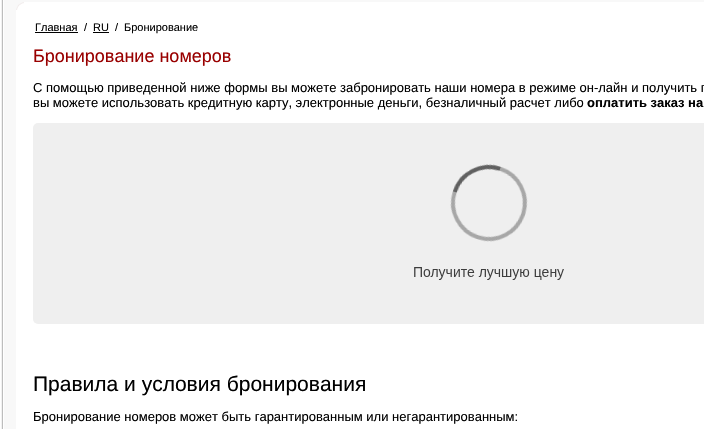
void draw(SkCanvas* canvas) {
    SkPaint paint;
    paint.setAntiAlias(true);
    canvas->clear(0xFFFFFFFF);
    canvas->drawImageRect(SkImages::DeferredFromEncodedData(SkData::MakeFromFileName("img1.png")), SkRect::MakeXYWH(2, 0, 1, 429), SkSamplingOptions());
    canvas->drawImageRect(SkImages::DeferredFromEncodedData(SkData::MakeFromFileName("img2.png")), SkRect::MakeXYWH(1, 0, 4, 429), SkSamplingOptions());
    paint.setColor(0xFFF8F8F8);
    canvas->drawRect(SkRect::MakeXYWH(5, 0, 699, 429), paint);
    canvas->drawImageRect(SkImages::DeferredFromEncodedData(SkData::MakeFromFileName("img3.png")), SkRect::MakeXYWH(16, 2, 8, 8), SkSamplingOptions());
    paint.setColor(0xFFFFFFFF);
    canvas->drawRect(SkRect::MakeXYWH(24, 2, 680, 8), paint);
    canvas->drawRect(SkRect::MakeXYWH(16, 10, 688, 419), paint);
    SkFont font1(fontMgr->matchFamilyStyle("Liberation Sans", SkFontStyle::Normal()), 11);
    font1.setSubpixel(true);
    paint.setColor(0xFF000000);
    canvas->drawString("Главная", 35, 31, font1, paint);
    canvas->drawRect(SkRect::MakeXYWH(35, 32, 43, 1), paint);
    canvas->drawString("/", 84, 31, font1, paint);
    canvas->drawString("RU", 93, 31, font1, paint);
    canvas->drawRect(SkRect::MakeXYWH(93, 32, 16, 1), paint);
    canvas->drawString("/", 115, 31, font1, paint);
    canvas->drawString("Бронирование", 124, 31, font1, paint);
    SkFont font2(fontMgr->matchFamilyStyle("Liberation Sans", SkFontStyle::Normal()), 18);
    font2.setSubpixel(true);
    paint.setColor(0xFF990000);
    canvas->drawString("Бронирование номеров", 33, 62, font2, paint);
    SkFont font3(fontMgr->matchFamilyStyle("Liberation Sans", SkFontStyle::Normal()), 13);
    font3.setSubpixel(true);
    paint.setColor(0xFF000000);
    canvas->drawString("С помощью приведенной ниже формы вы можете забронировать наши номера в режиме он-лайн и получить г", 33, 92, font3, paint);
    canvas->drawString("вы можете использовать кредитную карту, электронные деньги, безналичный расчет либо", 33, 107, font3, paint);
    SkFont font4(fontMgr->matchFamilyStyle("Liberation Sans", SkFontStyle::Bold()), 13);
    font4.setSubpixel(true);
    canvas->drawString("оплатить заказ на", 587, 107, font4, paint);
    canvas->drawImageRect(SkImages::DeferredFromEncodedData(SkData::MakeFromFileName("img4.png")), SkRect::MakeXYWH(33, 123, 671, 201), SkSamplingOptions());
    SkFont font5(fontMgr->matchFamilyStyle("Liberation Sans", SkFontStyle::Normal()), 21);
    font5.setSubpixel(true);
    canvas->drawString("Правила и условия бронирования", 33, 391, font5, paint);
    canvas->drawString("Бронирование номеров может быть гарантированным или негарантированным:", 33, 421, font3, paint);
}
